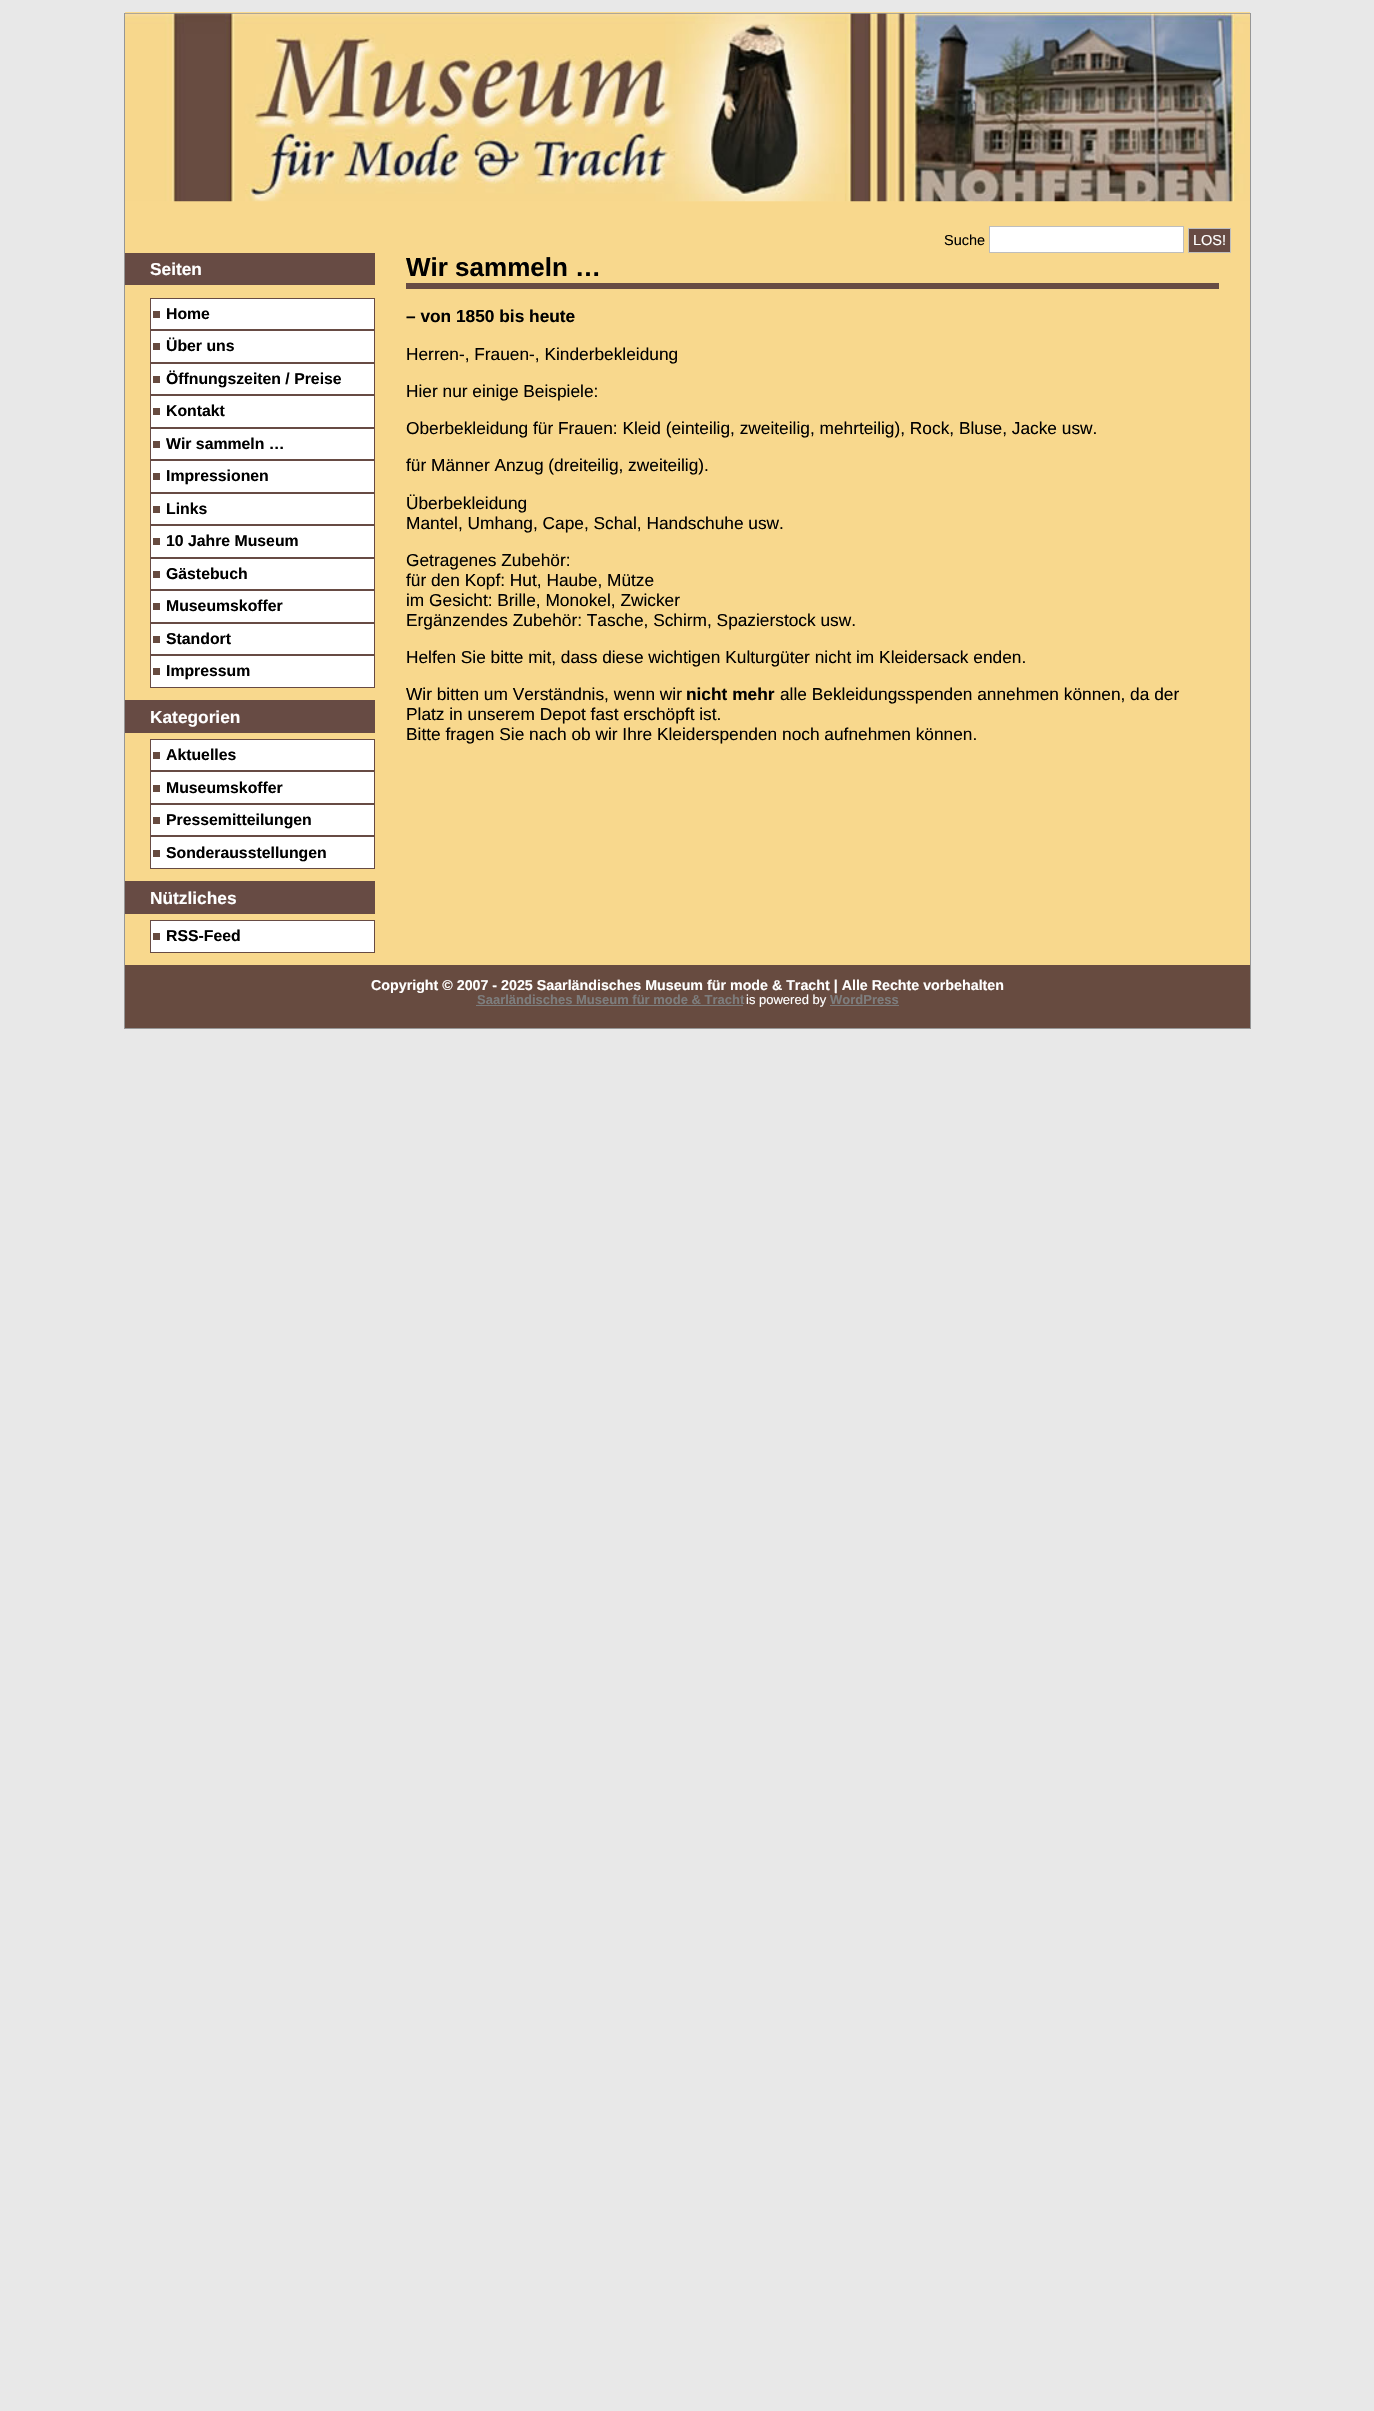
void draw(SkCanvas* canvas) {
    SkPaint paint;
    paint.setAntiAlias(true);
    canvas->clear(0xFFE8E8E8);
    paint.setColor(0xFFF8D88D);
    canvas->drawRect(SkRect::MakeXYWH(125, 12, 1125, 953), paint);
    paint.setStyle(SkPaint::kStroke_Style);
    paint.setStrokeWidth(1);
    paint.setColor(0xFF969696);
    canvas->drawRect(SkRect::MakeXYWH(124.5f, 13.5f, 1126, 1015), paint);
    canvas->drawImageRect(SkImages::DeferredFromEncodedData(SkData::MakeFromFileName("img1.png")), SkRect::MakeXYWH(125, 13, 1125, 189), SkSamplingOptions());
    SkFont font1(fontMgr->matchFamilyStyle("Liberation Sans", SkFontStyle::Normal()), 14.5f);
    font1.setSubpixel(true);
    paint.setStyle(SkPaint::kFill_Style);
    paint.setColor(0xFF000000);
    canvas->drawString("Suche", 944, 245, font1, paint);
    paint.setColor(0xFFFFFFFF);
    canvas->drawRect(SkRect::MakeXYWH(989.5f, 226.5f, 194, 26), paint);
    paint.setStyle(SkPaint::kStroke_Style);
    paint.setColor(0xFFBEBEBE);
    canvas->drawRect(SkRect::MakeXYWH(989.5f, 226.5f, 194, 26), paint);
    paint.setStyle(SkPaint::kFill_Style);
    paint.setColor(0xFF674B44);
    canvas->drawRect(SkRect::MakeXYWH(1188.5f, 228.5f, 42, 24), paint);
    paint.setStyle(SkPaint::kStroke_Style);
    paint.setColor(0xFFBEBEBE);
    canvas->drawRect(SkRect::MakeXYWH(1188.5f, 228.5f, 42, 24), paint);
    paint.setStyle(SkPaint::kFill_Style);
    paint.setColor(0xFFFFFFFF);
    canvas->drawString("LOS!", 1193, 245, font1, paint);
    paint.setColor(0xFF674B44);
    canvas->drawRect(SkRect::MakeXYWH(125, 253, 250, 32), paint);
    SkFont font2(fontMgr->matchFamilyStyle("Liberation Sans", SkFontStyle::Bold()), 17.3f);
    font2.setSubpixel(true);
    paint.setColor(0xFFFFFFFF);
    canvas->drawString("Seiten", 150, 275, font2, paint);
    canvas->drawRect(SkRect::MakeXYWH(150.5f, 298.5f, 224, 31), paint);
    paint.setStyle(SkPaint::kStroke_Style);
    paint.setColor(0xFF674B44);
    canvas->drawRect(SkRect::MakeXYWH(150.5f, 298.5f, 224, 31), paint);
    SkFont font3(fontMgr->matchFamilyStyle("Liberation Sans", SkFontStyle::Bold()), 15.8f);
    font3.setSubpixel(true);
    paint.setStyle(SkPaint::kFill_Style);
    paint.setColor(0xFF000000);
    canvas->drawString("Home", 166, 319, font3, paint);
    paint.setColor(0xFF674B40);
    canvas->drawRect(SkRect::MakeXYWH(153, 311, 7, 7), paint);
    paint.setColor(0xFFFFFFFF);
    canvas->drawRect(SkRect::MakeXYWH(150.5f, 330.5f, 224, 32), paint);
    paint.setStyle(SkPaint::kStroke_Style);
    paint.setColor(0xFF674B44);
    canvas->drawRect(SkRect::MakeXYWH(150.5f, 330.5f, 224, 32), paint);
    paint.setStyle(SkPaint::kFill_Style);
    paint.setColor(0xFF000000);
    canvas->drawString("Über uns", 166, 351, font3, paint);
    paint.setColor(0xFF674B40);
    canvas->drawRect(SkRect::MakeXYWH(153, 343, 7, 7), paint);
    paint.setColor(0xFFFFFFFF);
    canvas->drawRect(SkRect::MakeXYWH(150.5f, 363.5f, 224, 31), paint);
    paint.setStyle(SkPaint::kStroke_Style);
    paint.setColor(0xFF674B44);
    canvas->drawRect(SkRect::MakeXYWH(150.5f, 363.5f, 224, 31), paint);
    paint.setStyle(SkPaint::kFill_Style);
    paint.setColor(0xFF000000);
    canvas->drawString("Öffnungszeiten / Preise", 166, 384, font3, paint);
    paint.setColor(0xFF674B40);
    canvas->drawRect(SkRect::MakeXYWH(153, 376, 7, 7), paint);
    paint.setColor(0xFFFFFFFF);
    canvas->drawRect(SkRect::MakeXYWH(150.5f, 395.5f, 224, 32), paint);
    paint.setStyle(SkPaint::kStroke_Style);
    paint.setColor(0xFF674B44);
    canvas->drawRect(SkRect::MakeXYWH(150.5f, 395.5f, 224, 32), paint);
    paint.setStyle(SkPaint::kFill_Style);
    paint.setColor(0xFF000000);
    canvas->drawString("Kontakt", 166, 416, font3, paint);
    paint.setColor(0xFF674B40);
    canvas->drawRect(SkRect::MakeXYWH(153, 408, 7, 7), paint);
    paint.setColor(0xFFFFFFFF);
    canvas->drawRect(SkRect::MakeXYWH(150.5f, 428.5f, 224, 31), paint);
    paint.setStyle(SkPaint::kStroke_Style);
    paint.setColor(0xFF674B44);
    canvas->drawRect(SkRect::MakeXYWH(150.5f, 428.5f, 224, 31), paint);
    paint.setStyle(SkPaint::kFill_Style);
    paint.setColor(0xFF000000);
    canvas->drawString("Wir sammeln …", 166, 449, font3, paint);
    paint.setColor(0xFF674B40);
    canvas->drawRect(SkRect::MakeXYWH(153, 441, 7, 7), paint);
    paint.setColor(0xFFFFFFFF);
    canvas->drawRect(SkRect::MakeXYWH(150.5f, 460.5f, 224, 32), paint);
    paint.setStyle(SkPaint::kStroke_Style);
    paint.setColor(0xFF674B44);
    canvas->drawRect(SkRect::MakeXYWH(150.5f, 460.5f, 224, 32), paint);
    paint.setStyle(SkPaint::kFill_Style);
    paint.setColor(0xFF000000);
    canvas->drawString("Impressionen", 166, 481, font3, paint);
    paint.setColor(0xFF674B40);
    canvas->drawRect(SkRect::MakeXYWH(153, 473, 7, 7), paint);
    paint.setColor(0xFFFFFFFF);
    canvas->drawRect(SkRect::MakeXYWH(150.5f, 493.5f, 224, 31), paint);
    paint.setStyle(SkPaint::kStroke_Style);
    paint.setColor(0xFF674B44);
    canvas->drawRect(SkRect::MakeXYWH(150.5f, 493.5f, 224, 31), paint);
    paint.setStyle(SkPaint::kFill_Style);
    paint.setColor(0xFF000000);
    canvas->drawString("Links", 166, 514, font3, paint);
    paint.setColor(0xFF674B40);
    canvas->drawRect(SkRect::MakeXYWH(153, 506, 7, 7), paint);
    paint.setColor(0xFFFFFFFF);
    canvas->drawRect(SkRect::MakeXYWH(150.5f, 525.5f, 224, 32), paint);
    paint.setStyle(SkPaint::kStroke_Style);
    paint.setColor(0xFF674B44);
    canvas->drawRect(SkRect::MakeXYWH(150.5f, 525.5f, 224, 32), paint);
    paint.setStyle(SkPaint::kFill_Style);
    paint.setColor(0xFF000000);
    canvas->drawString("10 Jahre Museum", 166, 546, font3, paint);
    paint.setColor(0xFF674B40);
    canvas->drawRect(SkRect::MakeXYWH(153, 538, 7, 7), paint);
    paint.setColor(0xFFFFFFFF);
    canvas->drawRect(SkRect::MakeXYWH(150.5f, 558.5f, 224, 31), paint);
    paint.setStyle(SkPaint::kStroke_Style);
    paint.setColor(0xFF674B44);
    canvas->drawRect(SkRect::MakeXYWH(150.5f, 558.5f, 224, 31), paint);
    paint.setStyle(SkPaint::kFill_Style);
    paint.setColor(0xFF000000);
    canvas->drawString("Gästebuch", 166, 579, font3, paint);
    paint.setColor(0xFF674B40);
    canvas->drawRect(SkRect::MakeXYWH(153, 571, 7, 7), paint);
    paint.setColor(0xFFFFFFFF);
    canvas->drawRect(SkRect::MakeXYWH(150.5f, 590.5f, 224, 32), paint);
    paint.setStyle(SkPaint::kStroke_Style);
    paint.setColor(0xFF674B44);
    canvas->drawRect(SkRect::MakeXYWH(150.5f, 590.5f, 224, 32), paint);
    paint.setStyle(SkPaint::kFill_Style);
    paint.setColor(0xFF000000);
    canvas->drawString("Museumskoffer", 166, 611, font3, paint);
    paint.setColor(0xFF674B40);
    canvas->drawRect(SkRect::MakeXYWH(153, 603, 7, 7), paint);
    paint.setColor(0xFFFFFFFF);
    canvas->drawRect(SkRect::MakeXYWH(150.5f, 623.5f, 224, 31), paint);
    paint.setStyle(SkPaint::kStroke_Style);
    paint.setColor(0xFF674B44);
    canvas->drawRect(SkRect::MakeXYWH(150.5f, 623.5f, 224, 31), paint);
    paint.setStyle(SkPaint::kFill_Style);
    paint.setColor(0xFF000000);
    canvas->drawString("Standort", 166, 644, font3, paint);
    paint.setColor(0xFF674B40);
    canvas->drawRect(SkRect::MakeXYWH(153, 636, 7, 7), paint);
    paint.setColor(0xFFFFFFFF);
    canvas->drawRect(SkRect::MakeXYWH(150.5f, 655.5f, 224, 32), paint);
    paint.setStyle(SkPaint::kStroke_Style);
    paint.setColor(0xFF674B44);
    canvas->drawRect(SkRect::MakeXYWH(150.5f, 655.5f, 224, 32), paint);
    paint.setStyle(SkPaint::kFill_Style);
    paint.setColor(0xFF000000);
    canvas->drawString("Impressum", 166, 676, font3, paint);
    paint.setColor(0xFF674B40);
    canvas->drawRect(SkRect::MakeXYWH(153, 668, 7, 7), paint);
    paint.setColor(0xFF674B44);
    canvas->drawRect(SkRect::MakeXYWH(125, 700, 250, 33), paint);
    paint.setColor(0xFFFFFFFF);
    canvas->drawString("Kategorien", 150, 723, font2, paint);
    canvas->drawRect(SkRect::MakeXYWH(150.5f, 739.5f, 224, 31), paint);
    paint.setStyle(SkPaint::kStroke_Style);
    paint.setColor(0xFF674B44);
    canvas->drawRect(SkRect::MakeXYWH(150.5f, 739.5f, 224, 31), paint);
    paint.setStyle(SkPaint::kFill_Style);
    paint.setColor(0xFF000000);
    canvas->drawString("Aktuelles", 166, 760, font3, paint);
    paint.setColor(0xFF674B40);
    canvas->drawRect(SkRect::MakeXYWH(153, 752, 7, 7), paint);
    paint.setColor(0xFFFFFFFF);
    canvas->drawRect(SkRect::MakeXYWH(150.5f, 771.5f, 224, 32), paint);
    paint.setStyle(SkPaint::kStroke_Style);
    paint.setColor(0xFF674B44);
    canvas->drawRect(SkRect::MakeXYWH(150.5f, 771.5f, 224, 32), paint);
    paint.setStyle(SkPaint::kFill_Style);
    paint.setColor(0xFF000000);
    canvas->drawString("Museumskoffer", 166, 793, font3, paint);
    paint.setColor(0xFF674B40);
    canvas->drawRect(SkRect::MakeXYWH(153, 785, 7, 7), paint);
    paint.setColor(0xFFFFFFFF);
    canvas->drawRect(SkRect::MakeXYWH(150.5f, 804.5f, 224, 31), paint);
    paint.setStyle(SkPaint::kStroke_Style);
    paint.setColor(0xFF674B44);
    canvas->drawRect(SkRect::MakeXYWH(150.5f, 804.5f, 224, 31), paint);
    paint.setStyle(SkPaint::kFill_Style);
    paint.setColor(0xFF000000);
    canvas->drawString("Pressemitteilungen", 166, 825, font3, paint);
    paint.setColor(0xFF674B40);
    canvas->drawRect(SkRect::MakeXYWH(153, 817, 7, 7), paint);
    paint.setColor(0xFFFFFFFF);
    canvas->drawRect(SkRect::MakeXYWH(150.5f, 836.5f, 224, 32), paint);
    paint.setStyle(SkPaint::kStroke_Style);
    paint.setColor(0xFF674B44);
    canvas->drawRect(SkRect::MakeXYWH(150.5f, 836.5f, 224, 32), paint);
    paint.setStyle(SkPaint::kFill_Style);
    paint.setColor(0xFF000000);
    canvas->drawString("Sonderausstellungen", 166, 858, font3, paint);
    paint.setColor(0xFF674B40);
    canvas->drawRect(SkRect::MakeXYWH(153, 850, 7, 7), paint);
    paint.setColor(0xFF674B44);
    canvas->drawRect(SkRect::MakeXYWH(125, 881, 250, 33), paint);
    paint.setColor(0xFFFFFFFF);
    canvas->drawString("Nützliches", 150, 904, font2, paint);
    canvas->drawRect(SkRect::MakeXYWH(150.5f, 920.5f, 224, 32), paint);
    paint.setStyle(SkPaint::kStroke_Style);
    paint.setColor(0xFF674B44);
    canvas->drawRect(SkRect::MakeXYWH(150.5f, 920.5f, 224, 32), paint);
    paint.setStyle(SkPaint::kFill_Style);
    paint.setColor(0xFF000000);
    canvas->drawString("RSS-Feed", 166, 941, font3, paint);
    paint.setColor(0xFF674B40);
    canvas->drawRect(SkRect::MakeXYWH(153, 933, 7, 7), paint);
    paint.setColor(0xFF674B44);
    canvas->drawRect(SkRect::MakeXYWH(406, 283, 813, 6), paint);
    SkFont font4(fontMgr->matchFamilyStyle("Liberation Sans", SkFontStyle::Bold()), 26);
    font4.setSubpixel(true);
    paint.setColor(0xFF000000);
    canvas->drawString("Wir sammeln …", 406, 276, font4, paint);
    canvas->drawString("– von 1850 bis heute", 406, 322, font2, paint);
    SkFont font5(fontMgr->matchFamilyStyle("Liberation Sans", SkFontStyle::Normal()), 17.3f);
    font5.setSubpixel(true);
    canvas->drawString("Herren-, Frauen-, Kinderbekleidung", 406, 360, font5, paint);
    canvas->drawString("Hier nur einige Beispiele:", 406, 397, font5, paint);
    canvas->drawString("Oberbekleidung für Frauen: Kleid (einteilig, zweiteilig, mehrteilig), Rock, Bluse, Jacke usw.", 406, 434, font5, paint);
    canvas->drawString("für Männer Anzug (dreiteilig, zweiteilig).", 406, 471, font5, paint);
    canvas->drawString("Überbekleidung", 406, 509, font5, paint);
    canvas->drawString("Mantel, Umhang, Cape, Schal, Handschuhe usw.", 406, 529, font5, paint);
    canvas->drawString("Getragenes Zubehör:", 406, 566, font5, paint);
    canvas->drawString("für den Kopf: Hut, Haube, Mütze", 406, 586, font5, paint);
    canvas->drawString("im Gesicht: Brille, Monokel, Zwicker", 406, 606, font5, paint);
    canvas->drawString("Ergänzendes Zubehör: Tasche, Schirm, Spazierstock usw.", 406, 626, font5, paint);
    canvas->drawString("Helfen Sie bitte mit, dass diese wichtigen Kulturgüter nicht im Kleidersack enden.", 406, 663, font5, paint);
    canvas->drawString("Wir bitten um Verständnis, wenn wir", 406, 700, font5, paint);
    canvas->drawString("nicht mehr", 686, 700, font2, paint);
    canvas->drawString("alle Bekleidungsspenden annehmen können, da der", 780, 700, font5, paint);
    canvas->drawString("Platz in unserem Depot fast erschöpft ist.", 406, 720, font5, paint);
    canvas->drawString("Bitte fragen Sie nach ob wir Ihre Kleiderspenden noch aufnehmen können.", 406, 740, font5, paint);
    paint.setColor(0xFF674B40);
    canvas->drawRect(SkRect::MakeXYWH(125, 965, 1125, 63), paint);
    SkFont font6(fontMgr->matchFamilyStyle("Liberation Sans", SkFontStyle::Bold()), 14.25f);
    font6.setSubpixel(true);
    paint.setColor(0xFFFFFFFF);
    canvas->drawString("Copyright © 2007 - 2025 Saarländisches Museum für mode & Tracht | Alle Rechte vorbehalten", 371, 990, font6, paint);
    SkFont font7(fontMgr->matchFamilyStyle("Liberation Sans", SkFontStyle::Bold()), 13);
    font7.setSubpixel(true);
    paint.setColor(0xFF7D7D7D);
    canvas->drawString("Saarländisches Museum für mode & Tracht", 477, 1004, font7, paint);
    canvas->drawRect(SkRect::MakeXYWH(476, 1005, 267, 1), paint);
    SkFont font8(fontMgr->matchFamilyStyle("Liberation Sans", SkFontStyle::Normal()), 13);
    font8.setSubpixel(true);
    paint.setColor(0xFFFFFFFF);
    canvas->drawString("is powered by", 746, 1004, font8, paint);
    paint.setColor(0xFF7D7D7D);
    canvas->drawString("WordPress", 830, 1004, font7, paint);
    canvas->drawRect(SkRect::MakeXYWH(830, 1005, 69, 1), paint);
}
